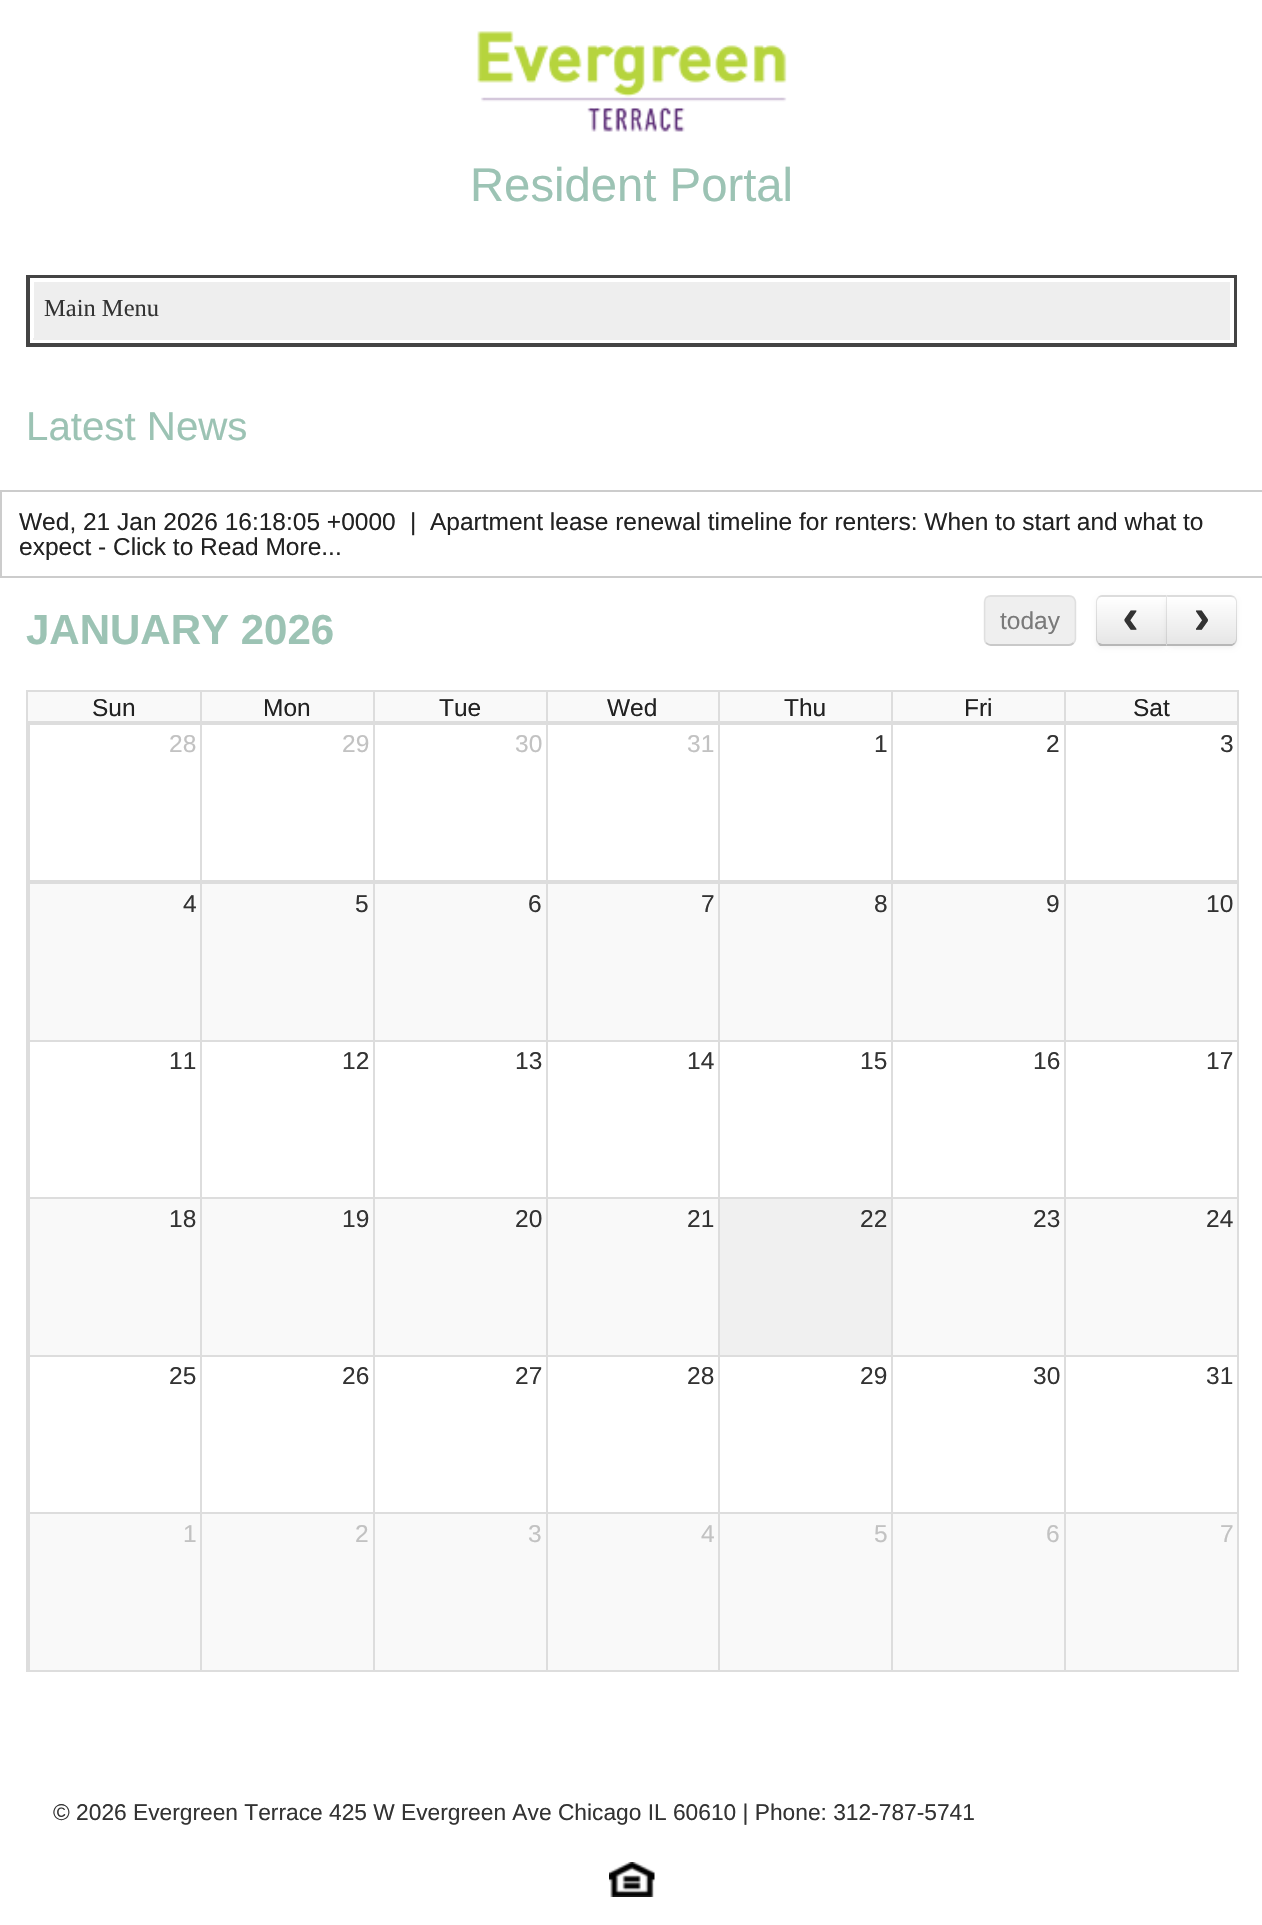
void draw(SkCanvas* canvas) {
    SkPaint paint;
    paint.setAntiAlias(true);
    canvas->clear(0xFFFFFFFF);
    canvas->drawImageRect(SkImages::DeferredFromEncodedData(SkData::MakeFromFileName("img1.png")), SkRect::MakeXYWH(477, 31, 310, 101), SkSamplingOptions());
    SkFont font1(fontMgr->matchFamilyStyle("Liberation Sans", SkFontStyle::Normal()), 47.25f);
    font1.setSubpixel(true);
    paint.setColor(0xFF9CC3B4);
    canvas->drawString("Resident Portal", 470, 201, font1, paint);
    paint.setColor(0xFFEEEEEE);
    canvas->drawRect(SkRect::MakeXYWH(34, 282, 1196, 56), paint);
    paint.setStyle(SkPaint::kStroke_Style);
    paint.setStrokeWidth(4);
    paint.setColor(0xFF444444);
    canvas->drawRect(SkRect::MakeXYWH(28, 277, 1207, 68), paint);
    paint.setColor(0xFFFFFFFF);
    canvas->drawRect(SkRect::MakeXYWH(32, 280, 1200, 61), paint);
    paint.setStyle(SkPaint::kFill_Style);
    paint.setColor(0xFFEEEEEE);
    canvas->drawRect(SkRect::MakeXYWH(33, 338, 1197, 2), paint);
    SkFont font2(fontMgr->matchFamilyStyle("Liberation Serif", SkFontStyle::Normal()), 24.5f);
    font2.setSubpixel(true);
    paint.setColor(0xFF333333);
    canvas->drawString("Main Menu", 44, 316, font2, paint);
    SkFont font3(fontMgr->matchFamilyStyle("Liberation Sans", SkFontStyle::Normal()), 40.25f);
    font3.setSubpixel(true);
    paint.setColor(0xFF9CC3B4);
    canvas->drawString("Latest News", 26, 440, font3, paint);
    paint.setStyle(SkPaint::kStroke_Style);
    paint.setStrokeWidth(2);
    paint.setColor(0xFFCCCCCC);
    canvas->drawRect(SkRect::MakeXYWH(1, 491, 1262, 86), paint);
    SkFont font4(fontMgr->matchFamilyStyle("Liberation Sans", SkFontStyle::Normal()), 24.5f);
    font4.setSubpixel(true);
    paint.setStyle(SkPaint::kFill_Style);
    paint.setColor(0xFF222222);
    canvas->drawString("Wed, 21 Jan 2026 16:18:05 +0000", 19, 530, font4, paint);
    canvas->drawString("|", 410, 530, font4, paint);
    canvas->drawString("Apartment lease renewal timeline for renters: When to start and what to", 430, 530, font4, paint);
    canvas->drawString("expect - Click to Read More...", 19, 555, font4, paint);
    SkFont font5(fontMgr->matchFamilyStyle("Liberation Sans", SkFontStyle::Bold()), 42);
    font5.setSubpixel(true);
    paint.setColor(0xFF9CC3B4);
    canvas->drawString("JANUARY 2026", 26, 644, font5, paint);
    paint.setColor(0xFFEFEFEF);
    canvas->drawRoundRect(SkRect::MakeXYWH(984, 595, 92, 51), 7, 7, paint);
    paint.setStyle(SkPaint::kStroke_Style);
    paint.setStrokeWidth(1.8f);
    paint.setColor(0x40595959);
    canvas->drawPath(SkPathBuilder().moveTo(1073.5f, 643).cubicTo(1072.5f, 644, 1071, 645, 1069, 645).lineTo(990.5f, 645).cubicTo(989, 645, 987.5f, 644, 986, 643).detach(), paint);
    paint.setColor(0x1A595959);
    canvas->drawPath(SkPathBuilder().moveTo(986, 643).cubicTo(985, 642, 984.5f, 640.5f, 984.5f, 639).lineTo(984.5f, 602).cubicTo(984.5f, 600.5f, 985, 599, 986, 597.5f).cubicTo(987.5f, 596.5f, 989, 596, 990.5f, 596).lineTo(1069, 596).cubicTo(1071, 596, 1072.5f, 596.5f, 1073.5f, 597.5f).cubicTo(1074.5f, 599, 1075.5f, 600.5f, 1075.5f, 602).lineTo(1075.5f, 639).cubicTo(1075.5f, 640.5f, 1074.5f, 642, 1073.5f, 643).detach(), paint);
    paint.setStyle(SkPaint::kFill_Style);
    paint.setColor(0xFF7A7A7A);
    canvas->drawString("today", 1000, 629, font4, paint);
    paint.setColor(0x0D000000);
    paint.setMaskFilter(SkMaskFilter::MakeBlur(kNormal_SkBlurStyle, 2));
    canvas->drawRoundRect(SkRect::MakeXYWH(1096, 597, 71, 51), 7, 7, paint);
    paint.setMaskFilter(nullptr);
    paint.setColor(0xFFF5F5F5);
    canvas->drawPath(SkPathBuilder().moveTo(1103, 595).lineTo(1167, 595).lineTo(1167, 646).lineTo(1103, 646).cubicTo(1099, 646, 1096, 643, 1096, 639).lineTo(1096, 602).cubicTo(1096, 598, 1099, 595, 1103, 595).close().detach(), paint);
    canvas->save();
    canvas->clipPath(SkPathBuilder().moveTo(1103, 595).lineTo(1167, 595).lineTo(1167, 646).lineTo(1103, 646).cubicTo(1099, 646, 1096, 643, 1096, 639).lineTo(1096, 602).cubicTo(1096, 598, 1099, 595, 1103, 595).close().detach(), true);
    {
        const SkColor colors[] = {0xFFFFFFFF, 0xFFE6E6E6};
        const float stops[] = {0, 1};
        const SkPoint ends[] = {{1131, 597}, {1131, 644}};
        paint.setShader(SkGradientShader::MakeLinear(ends, colors, stops, 2, SkTileMode::kClamp));
        paint.setAlpha(255);
    }
    canvas->drawRect(SkRect::MakeXYWH(1096, 597, 70, 47), paint);
    canvas->restore();
    paint.setShader(nullptr);
    paint.setColor(0x1A000000);
    canvas->drawPath(SkPathBuilder().moveTo(1102, 595).cubicTo(1100, 595, 1099, 596, 1098, 597).lineTo(1099, 598).cubicTo(1100, 597, 1101, 597, 1102, 597).lineTo(1165, 597).lineTo(1167, 595).close().detach(), paint);
    canvas->drawPath(SkPathBuilder().moveTo(1167, 595).lineTo(1167, 646).lineTo(1166, 644).lineTo(1166, 597).lineTo(1165, 597).close().detach(), paint);
    paint.setColor(0x40000000);
    canvas->drawPath(SkPathBuilder().moveTo(1100, 646).lineTo(1098, 644).lineTo(1099, 643).cubicTo(1100, 643, 1101, 644, 1102, 644).lineTo(1166, 644).lineTo(1167, 646).close().detach(), paint);
    paint.setColor(0x1A000000);
    canvas->drawPath(SkPathBuilder().moveTo(1098, 597).cubicTo(1097, 598, 1096, 600, 1096, 602).lineTo(1096, 639).cubicTo(1096, 641, 1097, 642, 1098, 644).lineTo(1099, 643).cubicTo(1098, 642, 1097, 640, 1097, 639).lineTo(1097, 602).cubicTo(1097, 600, 1098, 599, 1099, 598).close().detach(), paint);
    SkFont font6(fontMgr->matchFamilyStyle("Liberation Mono", SkFontStyle::Bold()), 49);
    font6.setSubpixel(true);
    paint.setColor(0xFF333333);
    canvas->drawString("‹", 1116, 633, font6, paint);
    paint.setColor(0x0D000000);
    paint.setMaskFilter(SkMaskFilter::MakeBlur(kNormal_SkBlurStyle, 2));
    canvas->drawRoundRect(SkRect::MakeXYWH(1166, 597, 71, 51), 7, 7, paint);
    paint.setMaskFilter(nullptr);
    paint.setColor(0xFFF5F5F5);
    canvas->drawPath(SkPathBuilder().moveTo(1166, 595).lineTo(1230, 595).cubicTo(1234, 595, 1237, 598, 1237, 602).lineTo(1237, 639).cubicTo(1237, 643, 1234, 646, 1230, 646).lineTo(1166, 646).close().detach(), paint);
    canvas->save();
    canvas->clipPath(SkPathBuilder().moveTo(1166, 595).lineTo(1230, 595).cubicTo(1234, 595, 1237, 598, 1237, 602).lineTo(1237, 639).cubicTo(1237, 643, 1234, 646, 1230, 646).lineTo(1166, 646).close().detach(), true);
    {
        const SkColor colors[] = {0xFFFFFFFF, 0xFFE6E6E6};
        const float stops[] = {0, 1};
        const SkPoint ends[] = {{1201, 597}, {1201, 644}};
        paint.setShader(SkGradientShader::MakeLinear(ends, colors, stops, 2, SkTileMode::kClamp));
        paint.setAlpha(255);
    }
    canvas->drawRect(SkRect::MakeXYWH(1166, 597, 71, 47), paint);
    canvas->restore();
    paint.setShader(nullptr);
    paint.setColor(0x1A000000);
    canvas->drawPath(SkPathBuilder().moveTo(1166, 595).lineTo(1168, 597).lineTo(1230, 597).cubicTo(1231, 597, 1233, 597, 1234, 598).lineTo(1235, 597).cubicTo(1234, 596, 1232, 595, 1230, 595).close().detach(), paint);
    canvas->drawPath(SkPathBuilder().moveTo(1235, 597).cubicTo(1236, 598, 1237, 600, 1237, 602).lineTo(1237, 639).cubicTo(1237, 641, 1236, 643, 1235, 644).lineTo(1234, 643).cubicTo(1235, 642, 1236, 640, 1236, 639).lineTo(1236, 602).cubicTo(1236, 600, 1235, 599, 1234, 598).close().detach(), paint);
    paint.setColor(0x40000000);
    canvas->drawPath(SkPathBuilder().moveTo(1166, 646).lineTo(1167, 644).lineTo(1230, 644).cubicTo(1232, 644, 1233, 644, 1234, 643).lineTo(1235, 644).lineTo(1232, 646).close().detach(), paint);
    paint.setColor(0x1A000000);
    canvas->drawPath(SkPathBuilder().moveTo(1167, 597).lineTo(1168, 597).lineTo(1166, 596).lineTo(1166, 645).lineTo(1167, 644).close().detach(), paint);
    paint.setColor(0xFF333333);
    canvas->drawString("›", 1187, 633, font6, paint);
    paint.setColor(0xFFDDDDDD);
    canvas->drawRect(SkRect::MakeXYWH(1237, 690, 2, 981), paint);
    canvas->drawRect(SkRect::MakeXYWH(26, 1670, 1213, 2), paint);
    canvas->drawRect(SkRect::MakeXYWH(26, 690, 2, 981), paint);
    paint.setColor(0xFFF9F9F9);
    canvas->drawRect(SkRect::MakeXYWH(28, 692, 1209, 29), paint);
    paint.setColor(0xFFDDDDDD);
    canvas->drawRect(SkRect::MakeXYWH(1064, 690, 175, 2), paint);
    canvas->drawRect(SkRect::MakeXYWH(1064, 721, 175, 2), paint);
    canvas->drawRect(SkRect::MakeXYWH(1064, 690, 2, 33), paint);
    canvas->drawRect(SkRect::MakeXYWH(891, 690, 175, 2), paint);
    canvas->drawRect(SkRect::MakeXYWH(891, 721, 175, 2), paint);
    canvas->drawRect(SkRect::MakeXYWH(891, 690, 2, 33), paint);
    canvas->drawRect(SkRect::MakeXYWH(718, 690, 175, 2), paint);
    canvas->drawRect(SkRect::MakeXYWH(718, 721, 175, 2), paint);
    canvas->drawRect(SkRect::MakeXYWH(718, 690, 2, 33), paint);
    canvas->drawRect(SkRect::MakeXYWH(546, 690, 173, 2), paint);
    canvas->drawRect(SkRect::MakeXYWH(546, 721, 173, 2), paint);
    canvas->drawRect(SkRect::MakeXYWH(546, 690, 2, 33), paint);
    canvas->drawRect(SkRect::MakeXYWH(373, 690, 175, 2), paint);
    canvas->drawRect(SkRect::MakeXYWH(373, 721, 175, 2), paint);
    canvas->drawRect(SkRect::MakeXYWH(373, 690, 2, 33), paint);
    canvas->drawRect(SkRect::MakeXYWH(200, 690, 175, 2), paint);
    canvas->drawRect(SkRect::MakeXYWH(200, 721, 175, 2), paint);
    canvas->drawRect(SkRect::MakeXYWH(200, 690, 2, 33), paint);
    canvas->drawRect(SkRect::MakeXYWH(28, 690, 173, 2), paint);
    canvas->drawRect(SkRect::MakeXYWH(28, 721, 173, 2), paint);
    paint.setColor(0xFF222222);
    canvas->drawString("Sun", 92, 716, font4, paint);
    canvas->drawString("Mon", 263, 716, font4, paint);
    canvas->drawString("Tue", 439, 716, font4, paint);
    canvas->drawString("Wed", 607, 716, font4, paint);
    canvas->drawString("Thu", 784, 716, font4, paint);
    canvas->drawString("Fri", 964, 716, font4, paint);
    canvas->drawString("Sat", 1133, 716, font4, paint);
    paint.setColor(0xFFDDDDDD);
    canvas->drawRect(SkRect::MakeXYWH(26, 723, 1213, 2), paint);
    canvas->drawRect(SkRect::MakeXYWH(1064, 880, 175, 2), paint);
    canvas->drawRect(SkRect::MakeXYWH(1064, 723, 2, 159), paint);
    canvas->drawRect(SkRect::MakeXYWH(891, 880, 175, 2), paint);
    canvas->drawRect(SkRect::MakeXYWH(891, 723, 2, 159), paint);
    canvas->drawRect(SkRect::MakeXYWH(718, 880, 175, 2), paint);
    canvas->drawRect(SkRect::MakeXYWH(718, 723, 2, 159), paint);
    canvas->drawRect(SkRect::MakeXYWH(546, 880, 173, 2), paint);
    canvas->drawRect(SkRect::MakeXYWH(546, 723, 2, 159), paint);
    canvas->drawRect(SkRect::MakeXYWH(373, 880, 175, 2), paint);
    canvas->drawRect(SkRect::MakeXYWH(373, 723, 2, 159), paint);
    canvas->drawRect(SkRect::MakeXYWH(200, 880, 175, 2), paint);
    canvas->drawRect(SkRect::MakeXYWH(200, 723, 2, 159), paint);
    canvas->drawRect(SkRect::MakeXYWH(28, 880, 173, 2), paint);
    canvas->drawRect(SkRect::MakeXYWH(28, 723, 2, 159), paint);
    paint.setColor(0xFFC2C2C2);
    canvas->drawString("28", 169, 752, font4, paint);
    canvas->drawString("29", 342, 752, font4, paint);
    canvas->drawString("30", 515, 752, font4, paint);
    canvas->drawString("31", 687, 752, font4, paint);
    paint.setColor(0xFF333333);
    canvas->drawString("1", 874, 752, font4, paint);
    canvas->drawString("2", 1046, 752, font4, paint);
    canvas->drawString("3", 1220, 752, font4, paint);
    paint.setColor(0xFFF9F9F9);
    canvas->drawRect(SkRect::MakeXYWH(30, 884, 1207, 156), paint);
    paint.setColor(0xFFDDDDDD);
    canvas->drawRect(SkRect::MakeXYWH(28, 882, 1209, 2), paint);
    canvas->drawRect(SkRect::MakeXYWH(1064, 1040, 175, 2), paint);
    canvas->drawRect(SkRect::MakeXYWH(1064, 882, 2, 159), paint);
    canvas->drawRect(SkRect::MakeXYWH(891, 1040, 175, 2), paint);
    canvas->drawRect(SkRect::MakeXYWH(891, 882, 2, 159), paint);
    canvas->drawRect(SkRect::MakeXYWH(718, 1040, 175, 2), paint);
    canvas->drawRect(SkRect::MakeXYWH(718, 882, 2, 159), paint);
    canvas->drawRect(SkRect::MakeXYWH(546, 1040, 173, 2), paint);
    canvas->drawRect(SkRect::MakeXYWH(546, 882, 2, 159), paint);
    canvas->drawRect(SkRect::MakeXYWH(373, 1040, 175, 2), paint);
    canvas->drawRect(SkRect::MakeXYWH(373, 882, 2, 159), paint);
    canvas->drawRect(SkRect::MakeXYWH(200, 1040, 175, 2), paint);
    canvas->drawRect(SkRect::MakeXYWH(200, 882, 2, 159), paint);
    canvas->drawRect(SkRect::MakeXYWH(28, 1040, 173, 2), paint);
    canvas->drawRect(SkRect::MakeXYWH(28, 882, 2, 317), paint);
    paint.setColor(0xFF333333);
    canvas->drawString("4", 183, 912, font4, paint);
    canvas->drawString("5", 355, 912, font4, paint);
    canvas->drawString("6", 528, 912, font4, paint);
    canvas->drawString("7", 701, 912, font4, paint);
    canvas->drawString("8", 874, 912, font4, paint);
    canvas->drawString("9", 1046, 912, font4, paint);
    canvas->drawString("10", 1206, 912, font4, paint);
    paint.setColor(0xFFDDDDDD);
    canvas->drawRect(SkRect::MakeXYWH(200, 1040, 2, 159), paint);
    canvas->drawRect(SkRect::MakeXYWH(373, 1040, 2, 159), paint);
    canvas->drawRect(SkRect::MakeXYWH(546, 1040, 2, 159), paint);
    canvas->drawRect(SkRect::MakeXYWH(718, 1040, 2, 159), paint);
    canvas->drawRect(SkRect::MakeXYWH(891, 1040, 2, 159), paint);
    canvas->drawRect(SkRect::MakeXYWH(1064, 1040, 2, 159), paint);
    paint.setColor(0xFF333333);
    canvas->drawString("11", 169, 1069, font4, paint);
    canvas->drawString("12", 342, 1069, font4, paint);
    canvas->drawString("13", 515, 1069, font4, paint);
    canvas->drawString("14", 687, 1069, font4, paint);
    canvas->drawString("15", 860, 1069, font4, paint);
    canvas->drawString("16", 1033, 1069, font4, paint);
    canvas->drawString("17", 1206, 1069, font4, paint);
    paint.setColor(0xFFF9F9F9);
    canvas->drawRect(SkRect::MakeXYWH(30, 1199, 1207, 156), paint);
    paint.setColor(0xFFDDDDDD);
    canvas->drawRect(SkRect::MakeXYWH(1064, 1355, 175, 2), paint);
    canvas->drawRect(SkRect::MakeXYWH(1064, 1197, 2, 159), paint);
    canvas->drawRect(SkRect::MakeXYWH(891, 1355, 175, 2), paint);
    canvas->drawRect(SkRect::MakeXYWH(891, 1237, 2, 119), paint);
    canvas->drawRect(SkRect::MakeXYWH(718, 1355, 175, 2), paint);
    canvas->drawRect(SkRect::MakeXYWH(718, 1237, 2, 119), paint);
    canvas->drawRect(SkRect::MakeXYWH(546, 1355, 173, 2), paint);
    canvas->drawRect(SkRect::MakeXYWH(546, 1197, 2, 159), paint);
    canvas->drawRect(SkRect::MakeXYWH(373, 1355, 175, 2), paint);
    canvas->drawRect(SkRect::MakeXYWH(373, 1197, 2, 159), paint);
    canvas->drawRect(SkRect::MakeXYWH(200, 1355, 175, 2), paint);
    canvas->drawRect(SkRect::MakeXYWH(200, 1197, 2, 159), paint);
    canvas->drawRect(SkRect::MakeXYWH(28, 1355, 173, 2), paint);
    canvas->drawRect(SkRect::MakeXYWH(28, 1197, 2, 317), paint);
    paint.setColor(0xFFF0F0F0);
    canvas->drawRect(SkRect::MakeXYWH(720, 1199, 171, 156), paint);
    paint.setColor(0xFFDDDDDD);
    canvas->drawRect(SkRect::MakeXYWH(28, 1197, 1209, 2), paint);
    paint.setColor(0xFF333333);
    canvas->drawString("18", 169, 1227, font4, paint);
    canvas->drawString("19", 342, 1227, font4, paint);
    canvas->drawString("20", 515, 1227, font4, paint);
    canvas->drawString("21", 687, 1227, font4, paint);
    paint.setColor(0xFFDDDDDD);
    canvas->drawRect(SkRect::MakeXYWH(718, 1197, 2, 40), paint);
    paint.setColor(0xFF333333);
    canvas->drawString("22", 860, 1227, font4, paint);
    paint.setColor(0xFFDDDDDD);
    canvas->drawRect(SkRect::MakeXYWH(891, 1197, 2, 40), paint);
    paint.setColor(0xFF333333);
    canvas->drawString("23", 1033, 1227, font4, paint);
    canvas->drawString("24", 1206, 1227, font4, paint);
    paint.setColor(0xFFDDDDDD);
    canvas->drawRect(SkRect::MakeXYWH(200, 1355, 2, 159), paint);
    canvas->drawRect(SkRect::MakeXYWH(373, 1355, 2, 159), paint);
    canvas->drawRect(SkRect::MakeXYWH(546, 1355, 2, 159), paint);
    canvas->drawRect(SkRect::MakeXYWH(718, 1355, 2, 159), paint);
    canvas->drawRect(SkRect::MakeXYWH(891, 1355, 2, 159), paint);
    canvas->drawRect(SkRect::MakeXYWH(1064, 1355, 2, 159), paint);
    paint.setColor(0xFF333333);
    canvas->drawString("25", 169, 1384, font4, paint);
    canvas->drawString("26", 342, 1384, font4, paint);
    canvas->drawString("27", 515, 1384, font4, paint);
    canvas->drawString("28", 687, 1384, font4, paint);
    canvas->drawString("29", 860, 1384, font4, paint);
    canvas->drawString("30", 1033, 1384, font4, paint);
    canvas->drawString("31", 1206, 1384, font4, paint);
    paint.setColor(0xFFF9F9F9);
    canvas->drawRect(SkRect::MakeXYWH(30, 1514, 1207, 156), paint);
    paint.setColor(0xFFDDDDDD);
    canvas->drawRect(SkRect::MakeXYWH(28, 1512, 1209, 2), paint);
    canvas->drawRect(SkRect::MakeXYWH(28, 1512, 2, 159), paint);
    canvas->drawRect(SkRect::MakeXYWH(200, 1512, 2, 159), paint);
    canvas->drawRect(SkRect::MakeXYWH(373, 1512, 2, 159), paint);
    canvas->drawRect(SkRect::MakeXYWH(546, 1512, 2, 159), paint);
    canvas->drawRect(SkRect::MakeXYWH(718, 1512, 2, 159), paint);
    canvas->drawRect(SkRect::MakeXYWH(891, 1512, 2, 159), paint);
    canvas->drawRect(SkRect::MakeXYWH(1064, 1512, 2, 159), paint);
    paint.setColor(0xFFC2C2C2);
    canvas->drawString("1", 183, 1542, font4, paint);
    canvas->drawString("2", 355, 1542, font4, paint);
    canvas->drawString("3", 528, 1542, font4, paint);
    canvas->drawString("4", 701, 1542, font4, paint);
    canvas->drawString("5", 874, 1542, font4, paint);
    canvas->drawString("6", 1046, 1542, font4, paint);
    canvas->drawString("7", 1220, 1542, font4, paint);
    SkFont font7(fontMgr->matchFamilyStyle("Liberation Sans", SkFontStyle::Normal()), 22.75f);
    font7.setSubpixel(true);
    paint.setColor(0xFF333333);
    canvas->drawString("© 2026 Evergreen Terrace 425 W Evergreen Ave Chicago IL 60610 | Phone: 312-787-5741", 53, 1820, font7, paint);
    canvas->drawImageRect(SkImages::DeferredFromEncodedData(SkData::MakeFromFileName("img2.png")), SkRect::MakeXYWH(609, 1862, 46, 35), SkSamplingOptions());
}
